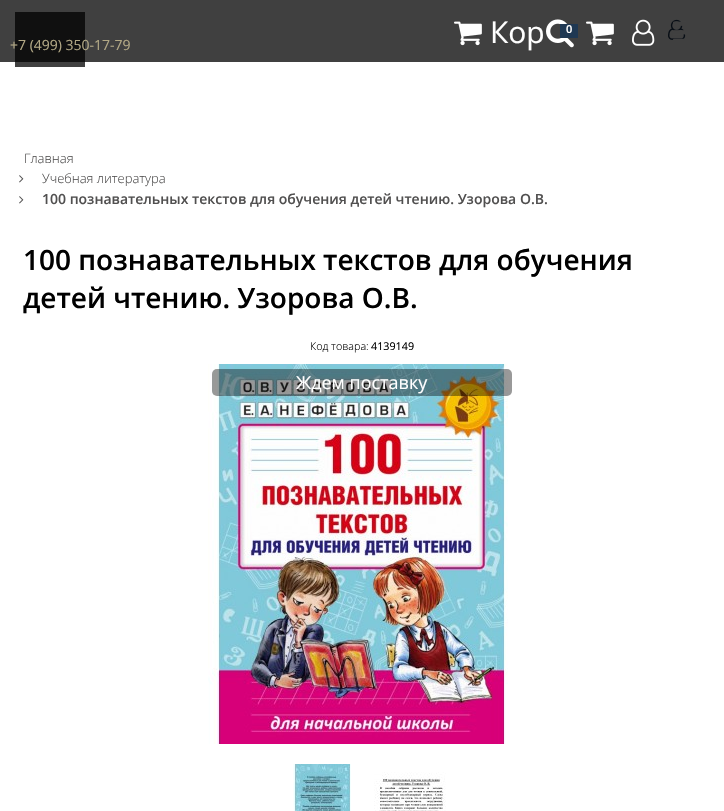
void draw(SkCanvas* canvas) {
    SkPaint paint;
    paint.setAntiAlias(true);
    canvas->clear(0xFFFFFFFF);
    paint.setColor(0xFF404040);
    canvas->drawRect(SkRect::MakeXYWH(0, 0, 724, 62), paint);
    canvas->drawImageRect(SkImages::DeferredFromEncodedData(SkData::MakeFromFileName("img1.png")), SkRect::MakeXYWH(546, 19, 28, 29), SkSamplingOptions());
    paint.setColor(0xFF101010);
    canvas->drawRect(SkRect::MakeXYWH(15, 12, 70, 50), paint);
    SkFont font1(fontMgr->matchFamilyStyle("Open Sans", SkFontStyle::Normal()), 14);
    font1.setSubpixel(true);
    paint.setColor(0xFFB2A885);
    canvas->drawString("+7 (499) 350-17-79", 10, 50, font1, paint);
    canvas->drawImageRect(SkImages::DeferredFromEncodedData(SkData::MakeFromFileName("img2.png")), SkRect::MakeXYWH(454, 21, 28, 25), SkSamplingOptions());
    SkFont font2(fontMgr->matchFamilyStyle("Open Sans", SkFontStyle::Normal()), 30);
    font2.setSubpixel(true);
    paint.setColor(0xFFFFFFFF);
    canvas->drawString("Кор", 490, 43, font2, paint);
    paint.setColor(0xFF1F3853);
    canvas->drawRect(SkRect::MakeXYWH(560, 24, 18, 14), paint);
    SkFont font3(fontMgr->matchFamilyStyle("Open Sans", SkFontStyle(600, SkFontStyle::kNormal_Width, SkFontStyle::kUpright_Slant)), 11);
    font3.setSubpixel(true);
    paint.setColor(0xFFFFFFFF);
    canvas->drawString("0", 566, 33, font3, paint);
    canvas->drawImageRect(SkImages::DeferredFromEncodedData(SkData::MakeFromFileName("img3.png")), SkRect::MakeXYWH(632, 19, 23, 27), SkSamplingOptions());
    canvas->drawImageRect(SkImages::DeferredFromEncodedData(SkData::MakeFromFileName("img4.png")), SkRect::MakeXYWH(668, 19, 18, 21), SkSamplingOptions());
    canvas->drawImageRect(SkImages::DeferredFromEncodedData(SkData::MakeFromFileName("img2.png")), SkRect::MakeXYWH(586, 21, 28, 25), SkSamplingOptions());
    canvas->drawImageRect(SkImages::DeferredFromEncodedData(SkData::MakeFromFileName("img5.png")), SkRect::MakeXYWH(673, 21, 13, 19), SkSamplingOptions());
    paint.setColor(0xFF404040);
    canvas->drawRect(SkRect::MakeXYWH(15, 62, 70, 5), paint);
    SkFont font4(fontMgr->matchFamilyStyle("Open Sans", SkFontStyle(300, SkFontStyle::kNormal_Width, SkFontStyle::kUpright_Slant)), 13);
    font4.setSubpixel(true);
    paint.setColor(0xFF515050);
    canvas->drawString("Главная", 24, 163, font4, paint);
    canvas->drawImageRect(SkImages::DeferredFromEncodedData(SkData::MakeFromFileName("img6.png")), SkRect::MakeXYWH(19, 175, 5, 8), SkSamplingOptions());
    canvas->drawString("Учебная литература", 42, 183, font4, paint);
    canvas->drawImageRect(SkImages::DeferredFromEncodedData(SkData::MakeFromFileName("img6.png")), SkRect::MakeXYWH(19, 196, 5, 8), SkSamplingOptions());
    SkFont font5(fontMgr->matchFamilyStyle("Open Sans", SkFontStyle(600, SkFontStyle::kNormal_Width, SkFontStyle::kUpright_Slant)), 14);
    font5.setSubpixel(true);
    canvas->drawString("100 познавательных текстов для обучения детей чтению. Узорова О.В.", 42, 204, font5, paint);
    SkFont font6(fontMgr->matchFamilyStyle("Open Sans", SkFontStyle(600, SkFontStyle::kNormal_Width, SkFontStyle::kUpright_Slant)), 28);
    font6.setSubpixel(true);
    paint.setColor(0xFF000000);
    canvas->drawString("100 познавательных текстов для обучения", 23, 270, font6, paint);
    canvas->drawString("детей чтению. Узорова О.В.", 23, 308, font6, paint);
    SkFont font7(fontMgr->matchFamilyStyle("Open Sans", SkFontStyle(300, SkFontStyle::kNormal_Width, SkFontStyle::kUpright_Slant)), 10.75f);
    font7.setSubpixel(true);
    canvas->drawString("Код товара:", 310, 350, font7, paint);
    SkFont font8(fontMgr->matchFamilyStyle("Open Sans", SkFontStyle::Normal()), 10.75f);
    font8.setSubpixel(true);
    canvas->drawString("4139149", 371, 350, font8, paint);
    canvas->drawImageRect(SkImages::DeferredFromEncodedData(SkData::MakeFromFileName("img7.png")), SkRect::MakeXYWH(208, 364, 300, 380), SkSamplingOptions());
    paint.setColor(0x66000000);
    canvas->drawRoundRect(SkRect::MakeXYWH(212, 369, 300, 27), 5, 5, paint);
    SkFont font9(fontMgr->matchFamilyStyle("Open Sans", SkFontStyle::Normal()), 18);
    font9.setSubpixel(true);
    paint.setColor(0xFFFFFFFF);
    canvas->drawString("Ждем поставку", 296, 389, font9, paint);
    canvas->drawImageRect(SkImages::DeferredFromEncodedData(SkData::MakeFromFileName("img8.png")), SkRect::MakeXYWH(293, 764, 58, 47), SkSamplingOptions());
    canvas->drawImageRect(SkImages::DeferredFromEncodedData(SkData::MakeFromFileName("img9.png")), SkRect::MakeXYWH(374, 772, 72, 39), SkSamplingOptions());
}
